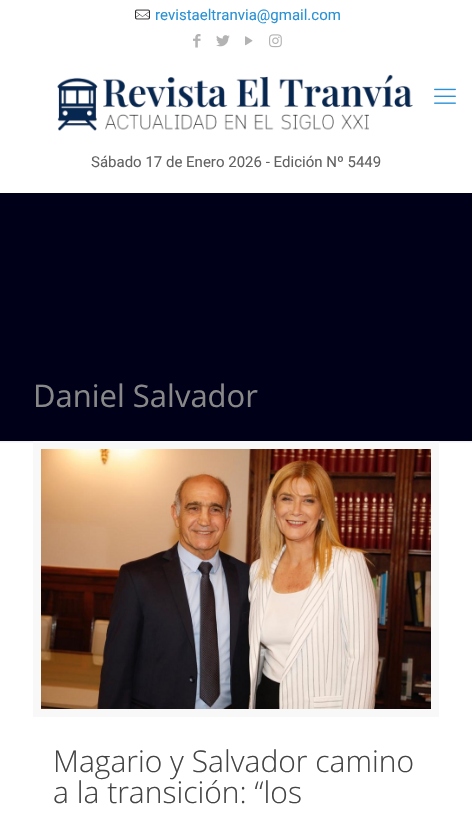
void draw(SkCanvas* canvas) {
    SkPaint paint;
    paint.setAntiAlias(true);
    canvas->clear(0xFFFFFFFF);
    paint.setColor(0xFF000119);
    canvas->drawRect(SkRect::MakeXYWH(0, 193, 472, 248), paint);
    canvas->drawImageRect(SkImages::DeferredFromEncodedData(SkData::MakeFromFileName("img1.png")), SkRect::MakeXYWH(135, 9, 15, 11), SkSamplingOptions());
    SkFont font1(fontMgr->matchFamilyStyle("Roboto", SkFontStyle::Normal()), 15);
    font1.setSubpixel(true);
    paint.setColor(0xFF2991D6);
    canvas->drawString("revistaeltranvia@gmail.com", 155, 20, font1, paint);
    canvas->drawImageRect(SkImages::DeferredFromEncodedData(SkData::MakeFromFileName("img2.png")), SkRect::MakeXYWH(193, 34, 8, 14), SkSamplingOptions());
    canvas->drawImageRect(SkImages::DeferredFromEncodedData(SkData::MakeFromFileName("img3.png")), SkRect::MakeXYWH(216, 35, 14, 12), SkSamplingOptions());
    canvas->drawImageRect(SkImages::DeferredFromEncodedData(SkData::MakeFromFileName("img4.png")), SkRect::MakeXYWH(245, 36, 8, 10), SkSamplingOptions());
    canvas->drawImageRect(SkImages::DeferredFromEncodedData(SkData::MakeFromFileName("img5.png")), SkRect::MakeXYWH(269, 34, 13, 14), SkSamplingOptions());
    canvas->drawImageRect(SkImages::DeferredFromEncodedData(SkData::MakeFromFileName("img6.png")), SkRect::MakeXYWH(57, 74, 356, 57), SkSamplingOptions());
    canvas->drawImageRect(SkImages::DeferredFromEncodedData(SkData::MakeFromFileName("img7.png")), SkRect::MakeXYWH(434, 88, 22, 16), SkSamplingOptions());
    paint.setColor(0xFF626262);
    canvas->drawString("Sábado 17 de Enero 2026 - Edición Nº 5449", 91, 167, font1, paint);
    SkFont font2(fontMgr->matchFamilyStyle("Open Sans", SkFontStyle::Normal()), 31);
    font2.setSubpixel(true);
    paint.setColor(0xFF888888);
    canvas->drawString("Daniel Salvador", 33, 407, font2, paint);
    canvas->drawImageRect(SkImages::DeferredFromEncodedData(SkData::MakeFromFileName("img8.png")), SkRect::MakeXYWH(0, 441, 472, 2), SkSamplingOptions());
    paint.setStyle(SkPaint::kStroke_Style);
    paint.setStrokeWidth(8);
    paint.setColor(0xFFF8F8F8);
    canvas->drawRect(SkRect::MakeXYWH(37, 445, 398, 268), paint);
    canvas->drawImageRect(SkImages::DeferredFromEncodedData(SkData::MakeFromFileName("img9.png")), SkRect::MakeXYWH(41, 449, 390, 260), SkSamplingOptions());
    SkFont font3(fontMgr->matchFamilyStyle("Open Sans", SkFontStyle(300, SkFontStyle::kNormal_Width, SkFontStyle::kUpright_Slant)), 30);
    font3.setSubpixel(true);
    paint.setStyle(SkPaint::kFill_Style);
    paint.setColor(0xFF444444);
    canvas->drawString("Magario y Salvador camino", 53, 772, font3, paint);
    canvas->drawString("a la transición: “los", 53, 803, font3, paint);
}
